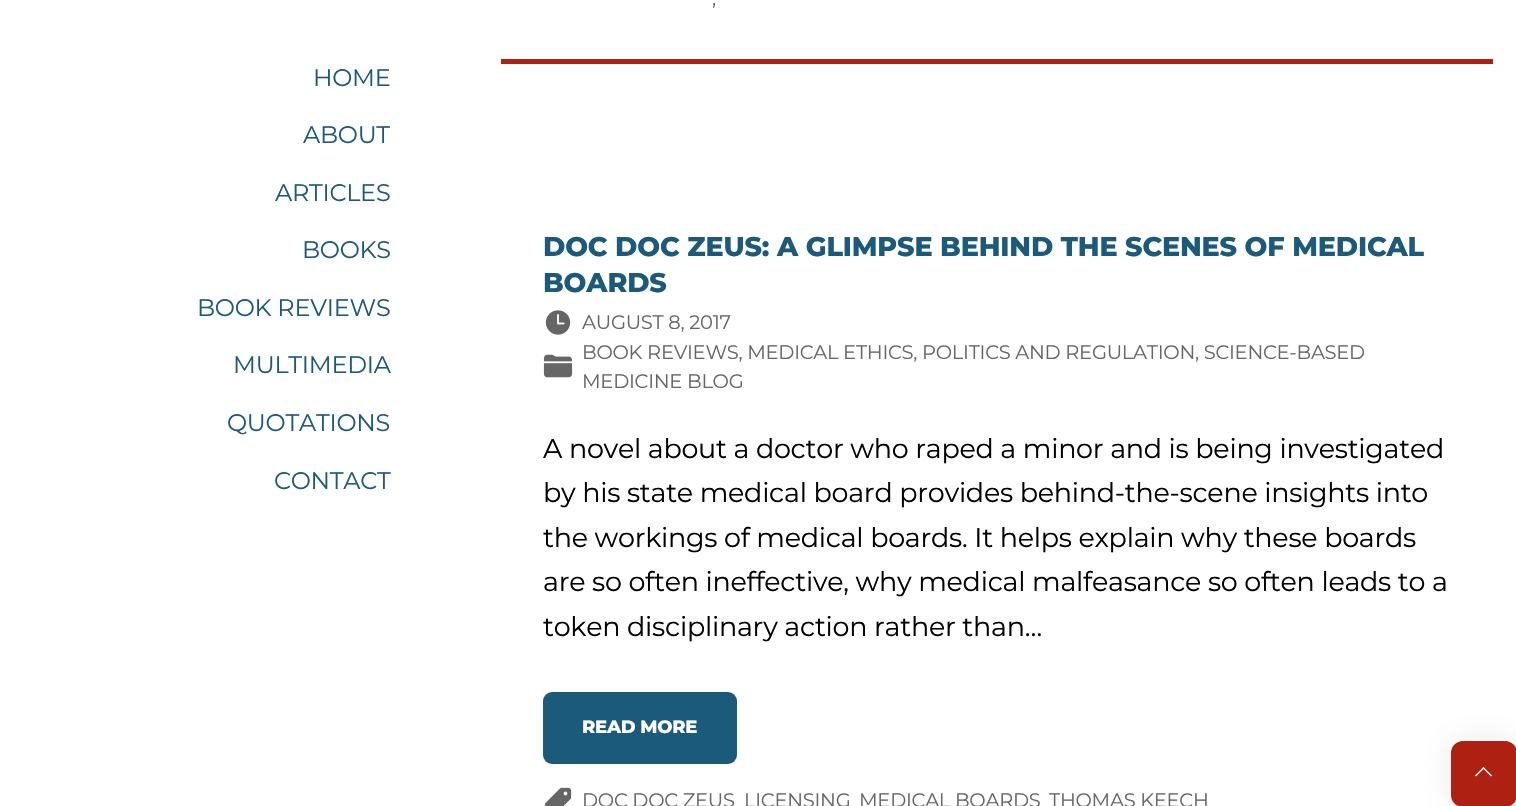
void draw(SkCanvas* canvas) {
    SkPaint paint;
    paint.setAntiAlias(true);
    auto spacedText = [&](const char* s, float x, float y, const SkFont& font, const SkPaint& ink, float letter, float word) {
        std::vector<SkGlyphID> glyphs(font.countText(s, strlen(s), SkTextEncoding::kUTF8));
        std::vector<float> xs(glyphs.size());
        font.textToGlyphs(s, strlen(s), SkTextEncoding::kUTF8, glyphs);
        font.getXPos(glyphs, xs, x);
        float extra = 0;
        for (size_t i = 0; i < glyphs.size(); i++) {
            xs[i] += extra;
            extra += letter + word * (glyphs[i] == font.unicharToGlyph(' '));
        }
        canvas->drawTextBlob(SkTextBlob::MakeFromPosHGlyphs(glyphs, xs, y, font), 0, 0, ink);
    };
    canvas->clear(0xFFFFFFFF);
    SkFont font1(fontMgr->matchFamilyStyle("Montserrat", SkFontStyle::Normal()), 24);
    font1.setSubpixel(true);
    paint.setColor(0xFF1C5A7C);
    spacedText("HOME", 313, 86, font1, paint, -0.27f, 0);
    spacedText("ABOUT", 303, 143, font1, paint, -0.27f, 0);
    spacedText("ARTICLES", 275, 201, font1, paint, -0.27f, 0);
    spacedText("BOOKS", 302, 258, font1, paint, -0.27f, 0);
    spacedText("BOOK REVIEWS", 197, 316, font1, paint, -0.27f, 0);
    spacedText("MULTIMEDIA", 233, 373, font1, paint, -0.27f, 0);
    spacedText("QUOTATIONS", 227, 431, font1, paint, -0.27f, 0);
    spacedText("CONTACT", 274, 489, font1, paint, -0.27f, 0);
    paint.setColor(0xFFAE2012);
    canvas->drawRect(SkRect::MakeXYWH(501, 59, 992, 5), paint);
    SkFont font2(fontMgr->matchFamilyStyle("Montserrat", SkFontStyle::Normal()), 19.5f);
    font2.setSubpixel(true);
    paint.setColor(0xFF666666);
    spacedText(",", 712, 5, font2, paint, -0.27f, 0);
    SkFont font3(fontMgr->matchFamilyStyle("Montserrat", SkFontStyle(800, SkFontStyle::kNormal_Width, SkFontStyle::kUpright_Slant)), 27);
    font3.setSubpixel(true);
    paint.setColor(0xFF1C5A7C);
    spacedText("DOC DOC ZEUS: A GLIMPSE BEHIND THE SCENES OF MEDICAL", 543, 256, font3, paint, -0.15f, 0);
    spacedText("BOARDS", 543, 292, font3, paint, -0.15f, 0);
    canvas->drawImageRect(SkImages::DeferredFromEncodedData(SkData::MakeFromFileName("img1.png")), SkRect::MakeXYWH(545, 310, 26, 25), SkSamplingOptions());
    paint.setColor(0xFF666666);
    spacedText("AUGUST 8, 2017", 582, 329, font2, paint, -0.27f, 0);
    canvas->drawImageRect(SkImages::DeferredFromEncodedData(SkData::MakeFromFileName("img2.png")), SkRect::MakeXYWH(543, 354, 30, 24), SkSamplingOptions());
    spacedText("BOOK REVIEWS, MEDICAL ETHICS, POLITICS AND REGULATION, SCIENCE-BASED", 582, 359, font2, paint, -0.27f, 0);
    spacedText("MEDICINE BLOG", 582, 388, font2, paint, -0.27f, 0);
    SkFont font4(fontMgr->matchFamilyStyle("Montserrat", SkFontStyle::Normal()), 27);
    font4.setSubpixel(true);
    paint.setColor(0xFF000000);
    spacedText("A novel about a doctor who raped a minor and is being investigated", 543, 458, font4, paint, -0.27f, 0);
    spacedText("by his state medical board provides behind-the-scene insights into", 543, 502, font4, paint, -0.27f, 0);
    spacedText("the workings of medical boards. It helps explain why these boards", 543, 547, font4, paint, -0.27f, 0);
    spacedText("are so often ineffective, why medical malfeasance so often leads to a", 543, 591, font4, paint, -0.27f, 0);
    spacedText("token disciplinary action rather than…", 543, 636, font4, paint, -0.27f, 0);
    paint.setColor(0xFF1C5A7C);
    canvas->drawRoundRect(SkRect::MakeXYWH(543, 692, 194, 72), 9, 9, paint);
    SkFont font5(fontMgr->matchFamilyStyle("Montserrat", SkFontStyle(800, SkFontStyle::kNormal_Width, SkFontStyle::kUpright_Slant)), 18);
    font5.setSubpixel(true);
    paint.setColor(0xFFFFFFFF);
    spacedText("READ MORE", 582, 733, font5, paint, -0.27f, 0);
    canvas->drawImageRect(SkImages::DeferredFromEncodedData(SkData::MakeFromFileName("img3.png")), SkRect::MakeXYWH(544, 787, 28, 19), SkSamplingOptions());
    paint.setColor(0xFF666666);
    spacedText("DOC DOC ZEUS", 582, 807, font2, paint, -0.27f, 0);
    spacedText("LICENSING", 744, 807, font2, paint, -0.27f, 0);
    spacedText("MEDICAL BOARDS", 859, 807, font2, paint, -0.27f, 0);
    spacedText("THOMAS KEECH", 1049, 807, font2, paint, -0.27f, 0);
    paint.setColor(0x26646464);
    paint.setMaskFilter(SkMaskFilter::MakeBlur(kNormal_SkBlurStyle, 15));
    canvas->drawRoundRect(SkRect::MakeXYWH(1451, 741, 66, 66), 12, 12, paint);
    paint.setMaskFilter(nullptr);
    paint.setColor(0xFFAE2012);
    canvas->drawRoundRect(SkRect::MakeXYWH(1451, 741, 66, 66), 12, 12, paint);
    paint.setColor(0xFFFFFFFF);
    canvas->drawPath(SkPathBuilder().moveTo(1475, 775.5f).lineTo(1483.5f, 767).lineTo(1484.5f, 768).lineTo(1476, 776.5f).close().detach(), paint);
    canvas->drawPath(SkPathBuilder().moveTo(1482.5f, 768).lineTo(1483.5f, 767).lineTo(1492, 775.5f).lineTo(1491, 776.5f).close().detach(), paint);
}
